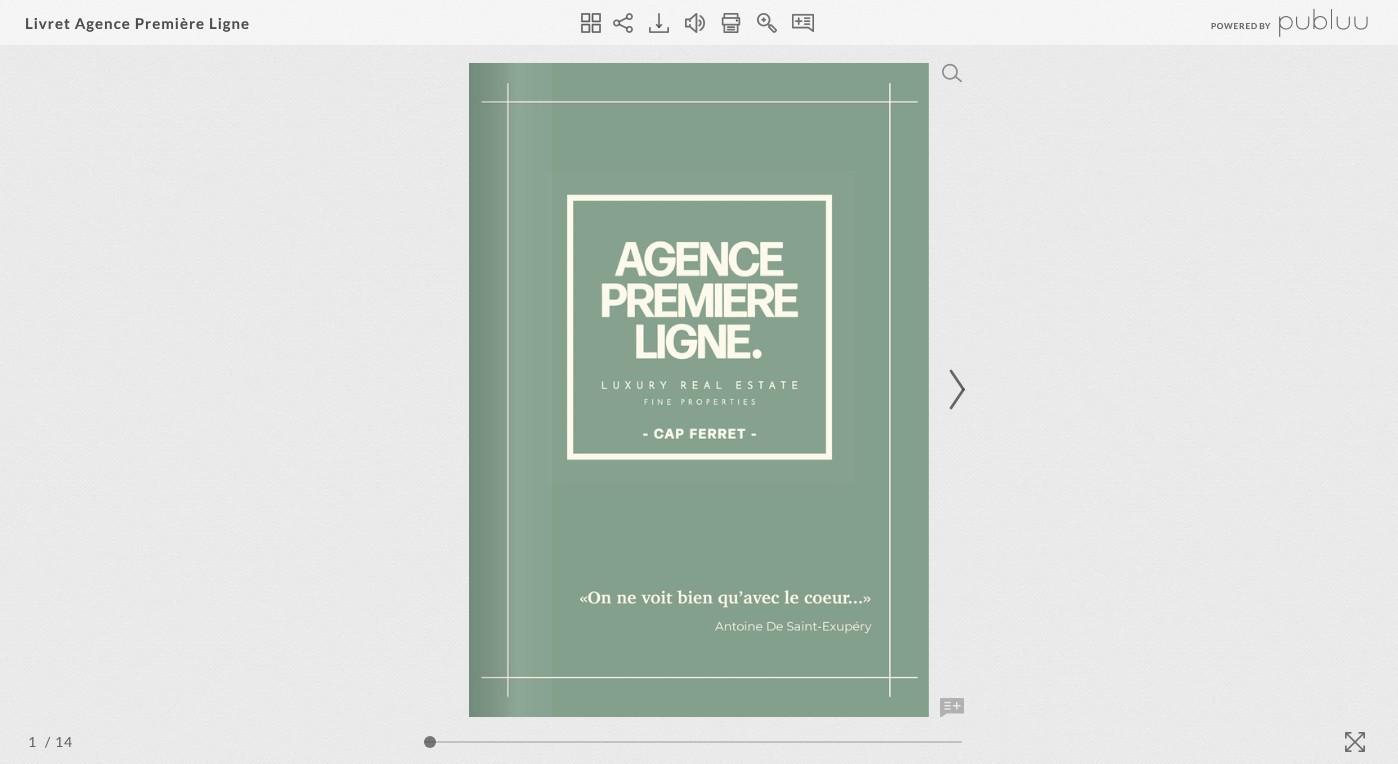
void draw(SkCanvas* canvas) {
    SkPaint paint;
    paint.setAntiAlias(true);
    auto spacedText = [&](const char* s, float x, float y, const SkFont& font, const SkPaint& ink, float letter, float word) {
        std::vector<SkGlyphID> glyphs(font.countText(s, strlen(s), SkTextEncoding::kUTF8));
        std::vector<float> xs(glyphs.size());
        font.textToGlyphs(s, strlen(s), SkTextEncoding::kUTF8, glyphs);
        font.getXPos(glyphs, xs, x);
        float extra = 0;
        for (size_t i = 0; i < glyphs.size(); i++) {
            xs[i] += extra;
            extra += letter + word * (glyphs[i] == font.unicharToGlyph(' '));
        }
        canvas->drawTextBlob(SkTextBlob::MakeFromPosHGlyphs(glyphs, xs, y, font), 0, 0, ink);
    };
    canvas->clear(0xFFFFFFFF);
    canvas->drawImageRect(SkImages::DeferredFromEncodedData(SkData::MakeFromFileName("img1.png")), SkRect::MakeXYWH(0, 0, 1398, 764), SkSamplingOptions());
    paint.setColor(0x80FFFFFF);
    canvas->drawRect(SkRect::MakeXYWH(0, 0, 1398, 45), paint);
    SkFont font1(fontMgr->matchFamilyStyle("Lato", SkFontStyle::Bold()), 15);
    font1.setSubpixel(true);
    paint.setColor(0xFF4D4D4D);
    spacedText("Livret Agence Première Ligne", 25, 29, font1, paint, 1, 0);
    canvas->drawImageRect(SkImages::DeferredFromEncodedData(SkData::MakeFromFileName("img2.png")), SkRect::MakeXYWH(581, 13, 20, 20), SkSamplingOptions());
    canvas->drawImageRect(SkImages::DeferredFromEncodedData(SkData::MakeFromFileName("img3.png")), SkRect::MakeXYWH(613, 13, 20, 20), SkSamplingOptions());
    canvas->drawImageRect(SkImages::DeferredFromEncodedData(SkData::MakeFromFileName("img4.png")), SkRect::MakeXYWH(649, 13, 20, 20), SkSamplingOptions());
    canvas->drawImageRect(SkImages::DeferredFromEncodedData(SkData::MakeFromFileName("img5.png")), SkRect::MakeXYWH(685, 13, 20, 20), SkSamplingOptions());
    canvas->drawImageRect(SkImages::DeferredFromEncodedData(SkData::MakeFromFileName("img6.png")), SkRect::MakeXYWH(721, 13, 20, 20), SkSamplingOptions());
    canvas->drawImageRect(SkImages::DeferredFromEncodedData(SkData::MakeFromFileName("img7.png")), SkRect::MakeXYWH(757, 13, 20, 20), SkSamplingOptions());
    canvas->drawImageRect(SkImages::DeferredFromEncodedData(SkData::MakeFromFileName("img8.png")), SkRect::MakeXYWH(792, 13, 22, 19), SkSamplingOptions());
    canvas->drawImageRect(SkImages::DeferredFromEncodedData(SkData::MakeFromFileName("img9.png")), SkRect::MakeXYWH(1211, 8, 157, 29), SkSamplingOptions());
    canvas->drawImageRect(SkImages::DeferredFromEncodedData(SkData::MakeFromFileName("img10.png")), SkRect::MakeXYWH(469, 63, 460, 654), SkSamplingOptions());
    canvas->drawImageRect(SkImages::DeferredFromEncodedData(SkData::MakeFromFileName("img11.png")), SkRect::MakeXYWH(469, 63, 83, 654), SkSamplingOptions());
    canvas->drawImageRect(SkImages::DeferredFromEncodedData(SkData::MakeFromFileName("img12.png")), SkRect::MakeXYWH(942, 63, 20, 20), SkSamplingOptions());
    canvas->drawImageRect(SkImages::DeferredFromEncodedData(SkData::MakeFromFileName("img13.png")), SkRect::MakeXYWH(940, 698, 24, 19), SkSamplingOptions());
    paint.setStyle(SkPaint::kStroke_Style);
    paint.setStrokeWidth(2.7f);
    paint.setStrokeCap(SkPaint::kRound_Cap);
    paint.setStrokeJoin(SkPaint::kRound_Join);
    paint.setColor(0xCC444444);
    canvas->drawPath(SkPathBuilder().moveTo(963.5f, 389.5f).lineTo(951, 371).detach(), paint);
    canvas->drawPath(SkPathBuilder().moveTo(963.5f, 389.5f).lineTo(951, 408).detach(), paint);
    SkFont font2(fontMgr->matchFamilyStyle("Lato", SkFontStyle::Normal()), 14);
    font2.setSubpixel(true);
    paint.setStyle(SkPaint::kFill_Style);
    paint.setColor(0xFF656565);
    spacedText("1", 28, 747, font2, paint, 1, 0);
    spacedText("/ 14", 45, 747, font2, paint, 1, 0);
    paint.setColor(0x3D444444);
    canvas->drawRect(SkRect::MakeXYWH(424, 741, 538, 2), paint);
    paint.setColor(0xB3444444);
    canvas->drawCircle(430, 742, 6, paint);
    canvas->drawImageRect(SkImages::DeferredFromEncodedData(SkData::MakeFromFileName("img14.png")), SkRect::MakeXYWH(1345, 732, 20, 20), SkSamplingOptions());
}
